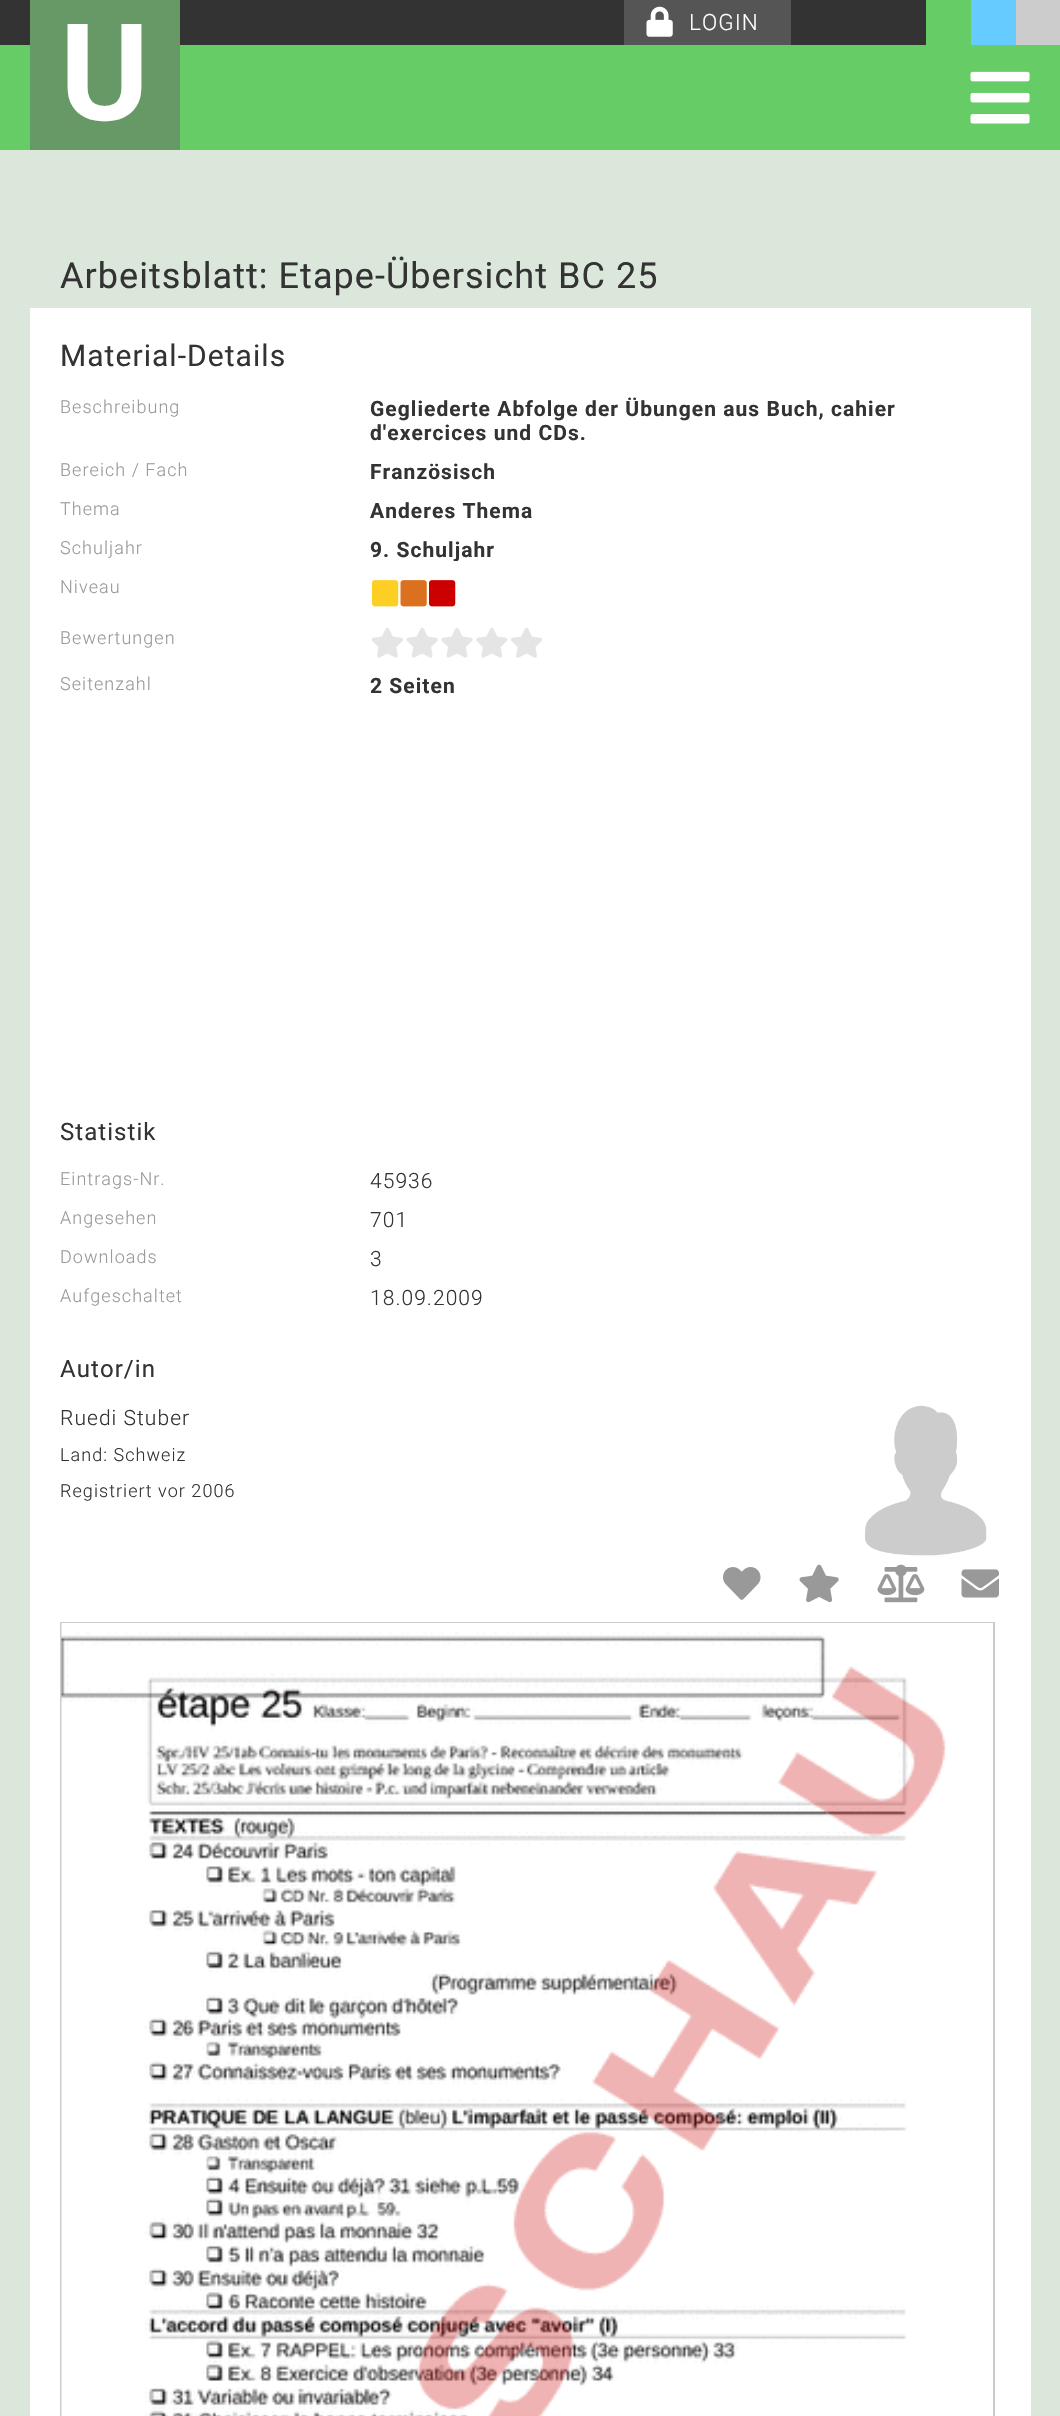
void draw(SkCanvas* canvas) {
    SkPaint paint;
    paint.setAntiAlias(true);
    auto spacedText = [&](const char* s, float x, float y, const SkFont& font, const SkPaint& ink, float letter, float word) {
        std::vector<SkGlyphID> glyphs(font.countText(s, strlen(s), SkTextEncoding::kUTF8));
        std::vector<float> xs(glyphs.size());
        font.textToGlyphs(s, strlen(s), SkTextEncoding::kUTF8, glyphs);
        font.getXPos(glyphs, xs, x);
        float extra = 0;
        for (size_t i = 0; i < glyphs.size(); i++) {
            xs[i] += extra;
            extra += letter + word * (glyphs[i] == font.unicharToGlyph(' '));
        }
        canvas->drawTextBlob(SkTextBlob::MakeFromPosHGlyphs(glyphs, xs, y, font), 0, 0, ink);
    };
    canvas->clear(0xFFDBE7DB);
    paint.setColor(0xFF333333);
    canvas->drawRect(SkRect::MakeXYWH(0, 0, 926, 45), paint);
    paint.setColor(0xFF555555);
    canvas->drawRect(SkRect::MakeXYWH(624, 0, 167, 45), paint);
    canvas->drawImageRect(SkImages::DeferredFromEncodedData(SkData::MakeFromFileName("img1.png")), SkRect::MakeXYWH(646, 6, 27, 31), SkSamplingOptions());
    SkFont font1(fontMgr->matchFamilyStyle("Roboto", SkFontStyle(300, SkFontStyle::kNormal_Width, SkFontStyle::kUpright_Slant)), 22.5f);
    font1.setSubpixel(true);
    paint.setColor(0xFFFFFFFF);
    spacedText("LOGIN", 689, 30, font1, paint, 1.05f, 0);
    paint.setColor(0xFF66CC66);
    canvas->drawRect(SkRect::MakeXYWH(926, 0, 45, 45), paint);
    paint.setColor(0xFF66CCFF);
    canvas->drawRect(SkRect::MakeXYWH(971, 0, 45, 45), paint);
    paint.setColor(0xFFCCCCCC);
    canvas->drawRect(SkRect::MakeXYWH(1016, 0, 44, 45), paint);
    paint.setColor(0xFF66CC66);
    canvas->drawRect(SkRect::MakeXYWH(0, 45, 1060, 105), paint);
    paint.setColor(0xFF669966);
    canvas->drawRect(SkRect::MakeXYWH(30, 0, 150, 150), paint);
    SkFont font2(fontMgr->matchFamilyStyle("Roboto", SkFontStyle::Bold()), 135);
    font2.setSubpixel(true);
    paint.setColor(0xFFFFFFFF);
    spacedText("U", 60, 120, font2, paint, 1.05f, 0);
    canvas->drawImageRect(SkImages::DeferredFromEncodedData(SkData::MakeFromFileName("img2.png")), SkRect::MakeXYWH(970, 71, 60, 53), SkSamplingOptions());
    SkFont font3(fontMgr->matchFamilyStyle("Roboto", SkFontStyle::Normal()), 36);
    font3.setSubpixel(true);
    paint.setColor(0xFF333333);
    spacedText("Arbeitsblatt: Etape-Übersicht BC 25", 60, 288, font3, paint, 1.05f, 0);
    paint.setColor(0xFFFFFFFF);
    canvas->drawRect(SkRect::MakeXYWH(30, 308, 1001, 2108), paint);
    SkFont font4(fontMgr->matchFamilyStyle("Roboto", SkFontStyle::Normal()), 30);
    font4.setSubpixel(true);
    paint.setColor(0xFF333333);
    spacedText("Material-Details", 60, 366, font4, paint, 1.05f, 0);
    SkFont font5(fontMgr->matchFamilyStyle("Roboto", SkFontStyle(300, SkFontStyle::kNormal_Width, SkFontStyle::kUpright_Slant)), 18);
    font5.setSubpixel(true);
    paint.setColor(0xFF999999);
    spacedText("Beschreibung", 60, 413, font5, paint, 1.05f, 0);
    SkFont font6(fontMgr->matchFamilyStyle("Roboto", SkFontStyle::Bold()), 21);
    font6.setSubpixel(true);
    paint.setColor(0xFF333333);
    spacedText("Gegliederte Abfolge der Übungen aus Buch, cahier", 370, 416, font6, paint, 1.05f, 0);
    spacedText("d'exercices und CDs.", 370, 440, font6, paint, 1.05f, 0);
    paint.setColor(0xFF999999);
    spacedText("Bereich / Fach", 60, 476, font5, paint, 1.05f, 0);
    paint.setColor(0xFF333333);
    spacedText("Französisch", 370, 479, font6, paint, 1.05f, 0);
    paint.setColor(0xFF999999);
    spacedText("Thema", 60, 515, font5, paint, 1.05f, 0);
    paint.setColor(0xFF333333);
    spacedText("Anderes Thema", 370, 518, font6, paint, 1.05f, 0);
    paint.setColor(0xFF999999);
    spacedText("Schuljahr", 60, 554, font5, paint, 1.05f, 0);
    canvas->save();
    canvas->clipRect(SkRect::MakeXYWH(60, 537, 941, 24));
    paint.setColor(0xFF333333);
    spacedText("9. Schuljahr", 370, 557, font6, paint, 1.05f, 0);
    canvas->restore();
    paint.setColor(0xFF999999);
    spacedText("Niveau", 60, 593, font5, paint, 1.05f, 0);
    canvas->drawImageRect(SkImages::DeferredFromEncodedData(SkData::MakeFromFileName("img3.png")), SkRect::MakeXYWH(372, 580, 27, 27), SkSamplingOptions());
    canvas->drawImageRect(SkImages::DeferredFromEncodedData(SkData::MakeFromFileName("img4.png")), SkRect::MakeXYWH(400, 580, 27, 27), SkSamplingOptions());
    canvas->drawImageRect(SkImages::DeferredFromEncodedData(SkData::MakeFromFileName("img5.png")), SkRect::MakeXYWH(429, 580, 27, 27), SkSamplingOptions());
    spacedText("Bewertungen", 60, 644, font5, paint, 1.05f, 0);
    canvas->drawImageRect(SkImages::DeferredFromEncodedData(SkData::MakeFromFileName("img6.png")), SkRect::MakeXYWH(371, 627, 172, 31), SkSamplingOptions());
    spacedText("Seitenzahl", 60, 690, font5, paint, 1.05f, 0);
    paint.setColor(0xFF333333);
    spacedText("2 Seiten", 370, 693, font6, paint, 1.05f, 0);
    SkFont font7(fontMgr->matchFamilyStyle("Roboto", SkFontStyle::Normal()), 24);
    font7.setSubpixel(true);
    spacedText("Statistik", 60, 1140, font7, paint, 1.05f, 0);
    paint.setColor(0xFF999999);
    spacedText("Eintrags-Nr.", 60, 1185, font5, paint, 1.05f, 0);
    SkFont font8(fontMgr->matchFamilyStyle("Roboto", SkFontStyle(300, SkFontStyle::kNormal_Width, SkFontStyle::kUpright_Slant)), 21);
    font8.setSubpixel(true);
    paint.setColor(0xFF333333);
    spacedText("45936", 370, 1188, font8, paint, 1.05f, 0);
    paint.setColor(0xFF999999);
    spacedText("Angesehen", 60, 1224, font5, paint, 1.05f, 0);
    paint.setColor(0xFF333333);
    spacedText("701", 370, 1227, font8, paint, 1.05f, 0);
    paint.setColor(0xFF999999);
    spacedText("Downloads", 60, 1263, font5, paint, 1.05f, 0);
    paint.setColor(0xFF333333);
    spacedText("3", 370, 1266, font8, paint, 1.05f, 0);
    paint.setColor(0xFF999999);
    spacedText("Aufgeschaltet", 60, 1302, font5, paint, 1.05f, 0);
    paint.setColor(0xFF333333);
    spacedText("18.09.2009", 370, 1305, font8, paint, 1.05f, 0);
    spacedText("Autor/in", 60, 1377, font7, paint, 1.05f, 0);
    spacedText("Ruedi Stuber", 60, 1425, font8, paint, 1.05f, 0);
    canvas->drawImageRect(SkImages::DeferredFromEncodedData(SkData::MakeFromFileName("img7.png")), SkRect::MakeXYWH(865, 1405, 122, 151), SkSamplingOptions());
    spacedText("Land: Schweiz", 60, 1461, font5, paint, 1.05f, 0);
    spacedText("Registriert vor 2006", 60, 1497, font5, paint, 1.05f, 0);
    canvas->drawImageRect(SkImages::DeferredFromEncodedData(SkData::MakeFromFileName("img8.png")), SkRect::MakeXYWH(723, 1567, 38, 33), SkSamplingOptions());
    canvas->drawImageRect(SkImages::DeferredFromEncodedData(SkData::MakeFromFileName("img9.png")), SkRect::MakeXYWH(799, 1564, 40, 39), SkSamplingOptions());
    canvas->drawImageRect(SkImages::DeferredFromEncodedData(SkData::MakeFromFileName("img10.png")), SkRect::MakeXYWH(877, 1564, 48, 39), SkSamplingOptions());
    canvas->drawImageRect(SkImages::DeferredFromEncodedData(SkData::MakeFromFileName("img11.png")), SkRect::MakeXYWH(961, 1569, 38, 29), SkSamplingOptions());
    paint.setStyle(SkPaint::kStroke_Style);
    paint.setStrokeWidth(2);
    paint.setColor(0xFFCCCCCC);
    canvas->drawRect(SkRect::MakeXYWH(61, 1623, 933, 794), paint);
    canvas->drawImageRect(SkImages::DeferredFromEncodedData(SkData::MakeFromFileName("img12.png")), SkRect::MakeXYWH(61, 1623, 932, 793), SkSamplingOptions());
}
